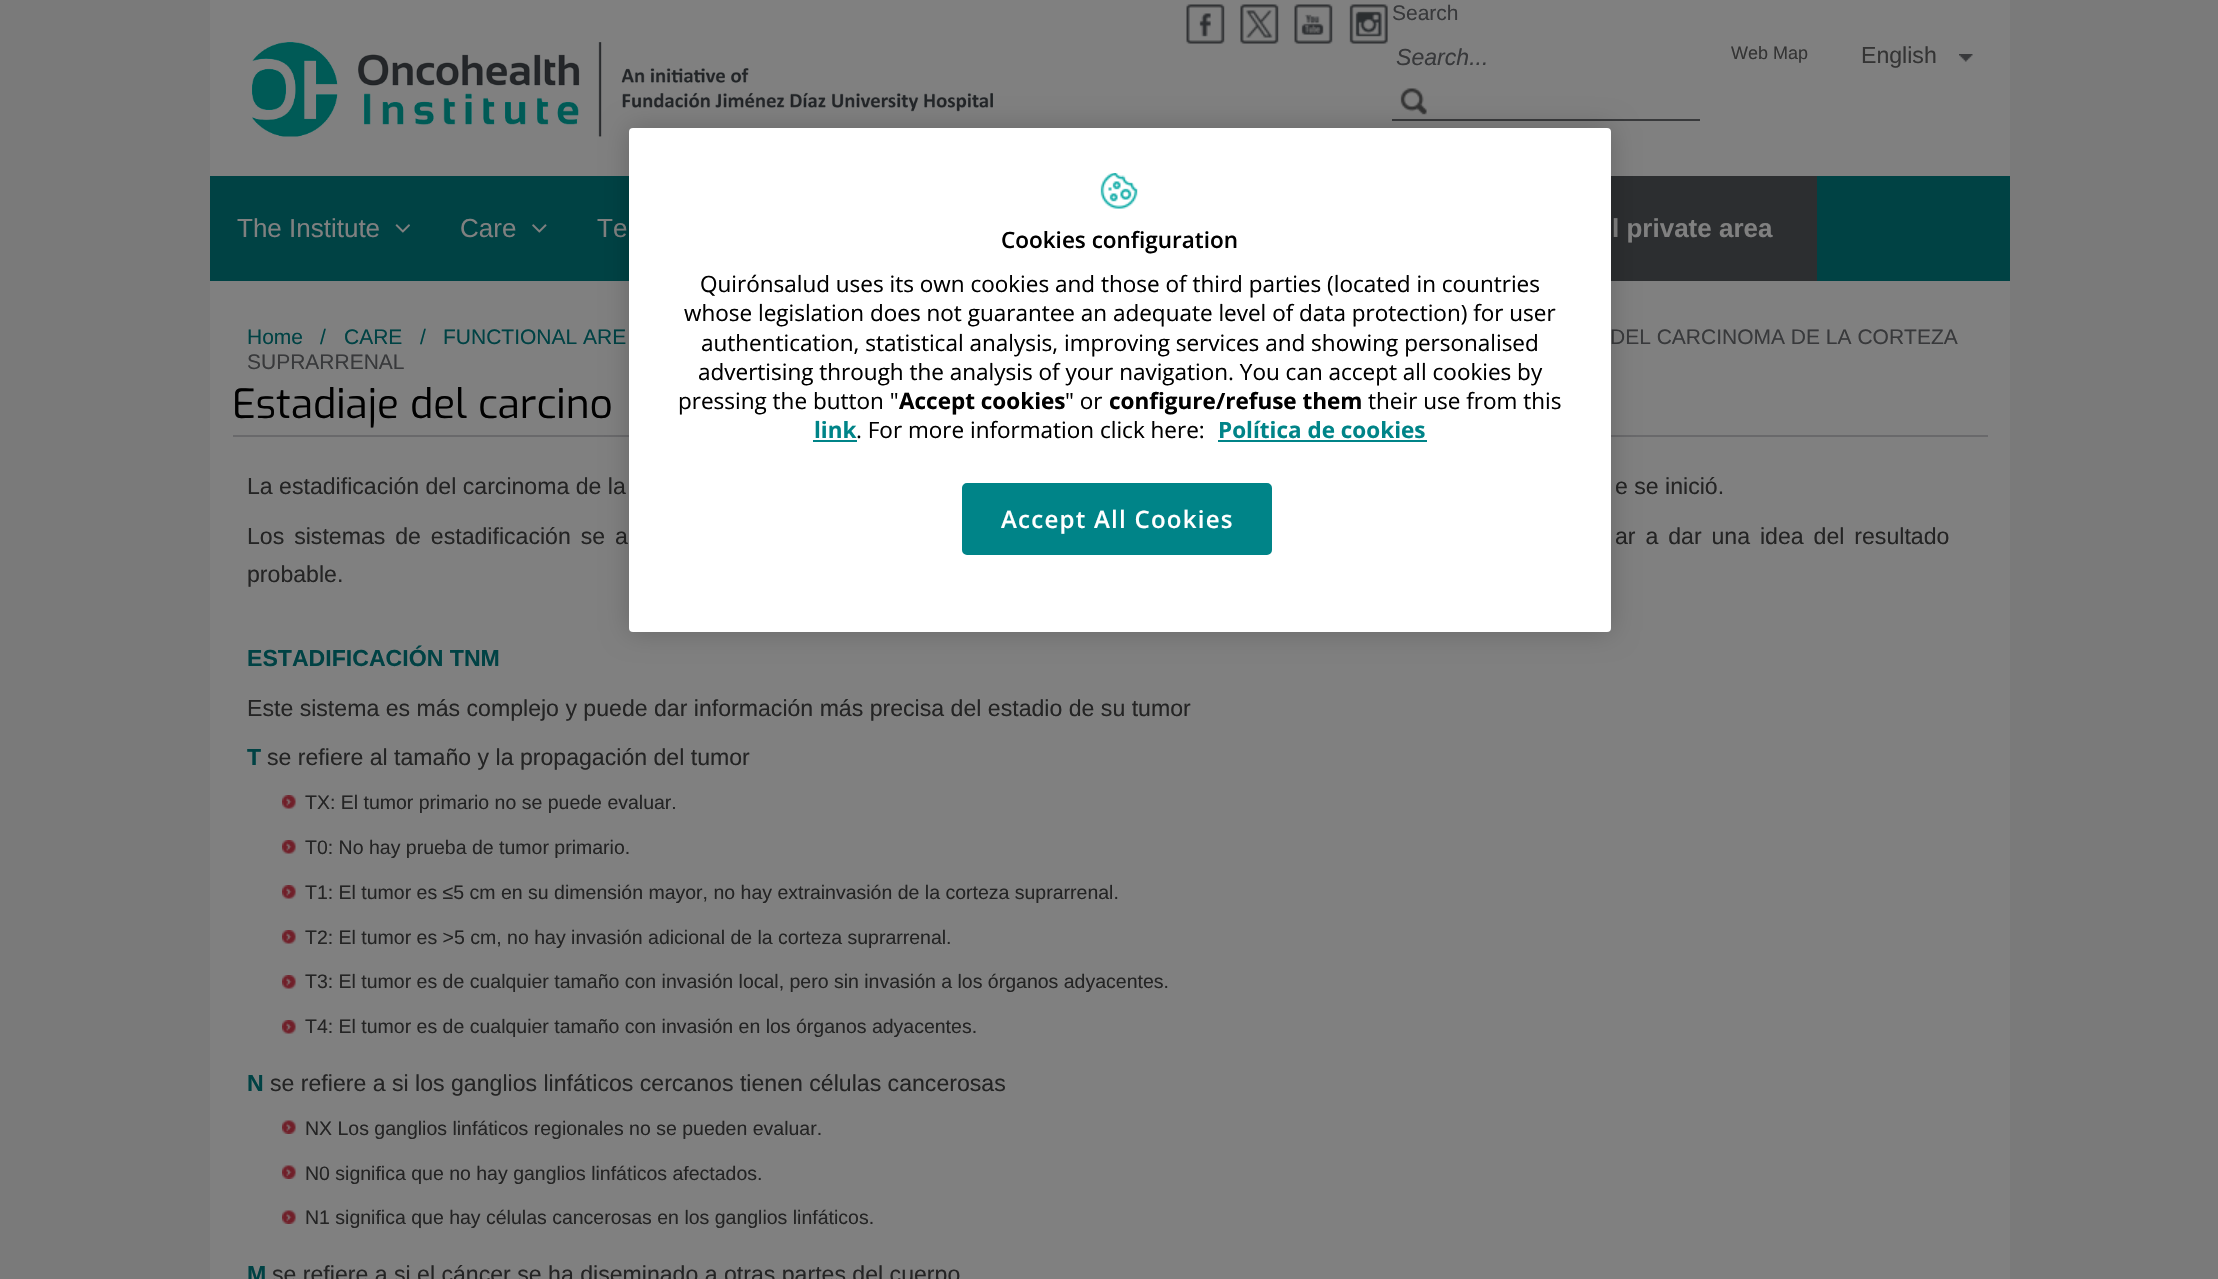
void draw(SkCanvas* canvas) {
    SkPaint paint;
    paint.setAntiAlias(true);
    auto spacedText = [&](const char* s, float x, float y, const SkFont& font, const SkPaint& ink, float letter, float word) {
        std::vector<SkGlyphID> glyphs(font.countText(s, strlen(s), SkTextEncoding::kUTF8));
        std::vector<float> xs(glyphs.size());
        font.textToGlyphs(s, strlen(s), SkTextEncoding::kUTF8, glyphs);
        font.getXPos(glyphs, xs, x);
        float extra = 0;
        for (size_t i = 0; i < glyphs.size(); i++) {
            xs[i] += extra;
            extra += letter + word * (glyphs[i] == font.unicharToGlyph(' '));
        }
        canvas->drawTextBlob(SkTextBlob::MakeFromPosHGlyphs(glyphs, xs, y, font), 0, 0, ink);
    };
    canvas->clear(0xFF7A7A7A);
    paint.setColor(0xFF808080);
    canvas->drawRect(SkRect::MakeXYWH(210, 0, 1800, 1279), paint);
    canvas->drawImageRect(SkImages::DeferredFromEncodedData(SkData::MakeFromFileName("img1.png")), SkRect::MakeXYWH(252, 42, 741, 95), SkSamplingOptions());
    canvas->drawImageRect(SkImages::DeferredFromEncodedData(SkData::MakeFromFileName("img2.png")), SkRect::MakeXYWH(1186, 4, 39, 40), SkSamplingOptions());
    canvas->drawImageRect(SkImages::DeferredFromEncodedData(SkData::MakeFromFileName("img3.png")), SkRect::MakeXYWH(1240, 4, 39, 40), SkSamplingOptions());
    canvas->drawImageRect(SkImages::DeferredFromEncodedData(SkData::MakeFromFileName("img4.png")), SkRect::MakeXYWH(1294, 4, 39, 40), SkSamplingOptions());
    canvas->drawImageRect(SkImages::DeferredFromEncodedData(SkData::MakeFromFileName("img5.png")), SkRect::MakeXYWH(1349, 4, 39, 40), SkSamplingOptions());
    paint.setColor(0xFF38393B);
    canvas->drawRect(SkRect::MakeXYWH(1392, 119, 308, 2), paint);
    SkFont font1(fontMgr->matchFamilyStyle("Liberation Sans", SkFontStyle::Normal()), 21);
    font1.setSubpixel(true);
    canvas->drawString("Search", 1392, 20, font1, paint);
    SkFont font2(fontMgr->matchFamilyStyle("Liberation Sans", SkFontStyle::Italic()), 23.1f);
    font2.setSubpixel(true);
    canvas->drawString("Search...", 1396, 65, font2, paint);
    canvas->drawImageRect(SkImages::DeferredFromEncodedData(SkData::MakeFromFileName("img6.png")), SkRect::MakeXYWH(1400, 88, 27, 27), SkSamplingOptions());
    SkFont font3(fontMgr->matchFamilyStyle("Liberation Sans", SkFontStyle::Normal()), 18);
    font3.setSubpixel(true);
    paint.setColor(0xFF343434);
    canvas->drawString("Web Map", 1731, 59, font3, paint);
    canvas->drawImageRect(SkImages::DeferredFromEncodedData(SkData::MakeFromFileName("img7.png")), SkRect::MakeXYWH(1959, 54, 14, 8), SkSamplingOptions());
    SkFont font4(fontMgr->matchFamilyStyle("Liberation Sans", SkFontStyle::Normal()), 23.1f);
    font4.setSubpixel(true);
    canvas->drawString("English", 1861, 63, font4, paint);
    paint.setColor(0xFF004244);
    canvas->drawRect(SkRect::MakeXYWH(210, 176, 1800, 105), paint);
    SkFont font5(fontMgr->matchFamilyStyle("Liberation Sans", SkFontStyle::Normal()), 26);
    font5.setSubpixel(true);
    paint.setColor(0xFF808080);
    canvas->drawString("The Institute", 237, 237, font5, paint);
    canvas->drawImageRect(SkImages::DeferredFromEncodedData(SkData::MakeFromFileName("img8.png")), SkRect::MakeXYWH(395, 224, 15, 9), SkSamplingOptions());
    canvas->drawString("Care", 460, 237, font5, paint);
    canvas->drawImageRect(SkImages::DeferredFromEncodedData(SkData::MakeFromFileName("img9.png")), SkRect::MakeXYWH(532, 224, 15, 9), SkSamplingOptions());
    canvas->drawString("Te", 597, 237, font5, paint);
    paint.setColor(0xFF2C2E30);
    canvas->drawRect(SkRect::MakeXYWH(1611, 176, 206, 105), paint);
    SkFont font6(fontMgr->matchFamilyStyle("Liberation Sans", SkFontStyle::Bold()), 26);
    font6.setSubpixel(true);
    paint.setColor(0xFF808080);
    canvas->drawString("l private area", 1612, 237, font6, paint);
    paint.setColor(0xFF004244);
    canvas->drawString("Home", 247, 344, font1, paint);
    canvas->drawString("/", 320, 344, font1, paint);
    canvas->drawString("CARE", 344, 344, font1, paint);
    canvas->drawString("/", 420, 344, font1, paint);
    canvas->drawString("FUNCTIONAL ARE", 443, 344, font1, paint);
    paint.setColor(0xFF38393B);
    canvas->drawString("DEL CARCINOMA DE LA CORTEZA", 1610, 344, font1, paint);
    canvas->drawString("SUPRARRENAL", 247, 369, font1, paint);
    paint.setColor(0xFF69696B);
    canvas->drawRect(SkRect::MakeXYWH(233, 435, 1755, 2), paint);
    SkFont font7(fontMgr->matchFamilyStyle("Exo", SkFontStyle::Normal()), 40.5f);
    font7.setSubpixel(true);
    paint.setColor(0xFF000000);
    canvas->drawString("Estadiaje del carcino", 232, 418, font7, paint);
    paint.setColor(0xFF242424);
    canvas->drawString("La estadificación del carcinoma de la", 247, 494, font4, paint);
    canvas->drawString("e se inició.", 1615, 494, font4, paint);
    spacedText("Los sistemas de estadificación se a", 247, 544, font4, paint, 0, 3.5f);
    spacedText("ar a dar una idea del resultado", 1615, 544, font4, paint, 0, 3.5f);
    canvas->drawString("probable.", 247, 582, font4, paint);
    SkFont font8(fontMgr->matchFamilyStyle("Liberation Sans", SkFontStyle::Bold()), 23.1f);
    font8.setSubpixel(true);
    paint.setColor(0xFF004244);
    canvas->drawString("ESTADIFICACIÓN TNM", 247, 666, font8, paint);
    paint.setColor(0xFF242424);
    canvas->drawString("Este sistema es más complejo y puede dar información más precisa del estadio de su tumor", 247, 716, font4, paint);
    paint.setColor(0xFF004244);
    canvas->drawString("T", 247, 765, font8, paint);
    paint.setColor(0xFF242424);
    canvas->drawString("se refiere al tamaño y la propagación del tumor", 267, 765, font4, paint);
    canvas->drawImageRect(SkImages::DeferredFromEncodedData(SkData::MakeFromFileName("img10.png")), SkRect::MakeXYWH(282, 795, 14, 14), SkSamplingOptions());
    SkFont font9(fontMgr->matchFamilyStyle("Liberation Sans", SkFontStyle::Normal()), 19.5f);
    font9.setSubpixel(true);
    canvas->drawString("TX: El tumor primario no se puede evaluar.", 305, 809, font9, paint);
    canvas->drawImageRect(SkImages::DeferredFromEncodedData(SkData::MakeFromFileName("img10.png")), SkRect::MakeXYWH(282, 840, 14, 14), SkSamplingOptions());
    canvas->drawString("T0: No hay prueba de tumor primario.", 305, 854, font9, paint);
    canvas->drawImageRect(SkImages::DeferredFromEncodedData(SkData::MakeFromFileName("img10.png")), SkRect::MakeXYWH(282, 885, 14, 14), SkSamplingOptions());
    canvas->drawString("T1: El tumor es ≤5 cm en su dimensión mayor, no hay extrainvasión de la corteza suprarrenal.", 305, 899, font9, paint);
    canvas->drawImageRect(SkImages::DeferredFromEncodedData(SkData::MakeFromFileName("img10.png")), SkRect::MakeXYWH(282, 930, 14, 14), SkSamplingOptions());
    canvas->drawString("T2: El tumor es >5 cm, no hay invasión adicional de la corteza suprarrenal.", 305, 944, font9, paint);
    canvas->drawImageRect(SkImages::DeferredFromEncodedData(SkData::MakeFromFileName("img10.png")), SkRect::MakeXYWH(282, 975, 14, 14), SkSamplingOptions());
    canvas->drawString("T3: El tumor es de cualquier tamaño con invasión local, pero sin invasión a los órganos adyacentes.", 305, 988, font9, paint);
    canvas->drawImageRect(SkImages::DeferredFromEncodedData(SkData::MakeFromFileName("img10.png")), SkRect::MakeXYWH(282, 1020, 14, 14), SkSamplingOptions());
    canvas->drawString("T4: El tumor es de cualquier tamaño con invasión en los órganos adyacentes.", 305, 1033, font9, paint);
    paint.setColor(0xFF004244);
    canvas->drawString("N", 247, 1091, font8, paint);
    paint.setColor(0xFF242424);
    canvas->drawString("se refiere a si los ganglios linfáticos cercanos tienen células cancerosas", 270, 1091, font4, paint);
    canvas->drawImageRect(SkImages::DeferredFromEncodedData(SkData::MakeFromFileName("img11.png")), SkRect::MakeXYWH(282, 1120, 14, 14), SkSamplingOptions());
    canvas->drawString("NX Los ganglios linfáticos regionales no se pueden evaluar.", 305, 1135, font9, paint);
    canvas->drawImageRect(SkImages::DeferredFromEncodedData(SkData::MakeFromFileName("img11.png")), SkRect::MakeXYWH(282, 1165, 14, 14), SkSamplingOptions());
    canvas->drawString("N0 significa que no hay ganglios linfáticos afectados.", 305, 1180, font9, paint);
    canvas->drawImageRect(SkImages::DeferredFromEncodedData(SkData::MakeFromFileName("img11.png")), SkRect::MakeXYWH(282, 1210, 14, 14), SkSamplingOptions());
    canvas->drawString("N1 significa que hay células cancerosas en los ganglios linfáticos.", 305, 1224, font9, paint);
    paint.setColor(0xFF004244);
    canvas->drawString("M", 247, 1282, font8, paint);
    paint.setColor(0xFF242424);
    canvas->drawString("se refiere a si el cáncer se ha diseminado a otras partes del cuerpo", 272, 1282, font4, paint);
    paint.setColor(0x33000000);
    paint.setMaskFilter(SkMaskFilter::MakeBlur(kNormal_SkBlurStyle, 13.5f));
    canvas->drawRoundRect(SkRect::MakeXYWH(629, 128, 982, 504), 4, 4, paint);
    paint.setMaskFilter(nullptr);
    paint.setColor(0xFFFFFFFF);
    canvas->drawRoundRect(SkRect::MakeXYWH(629, 128, 982, 504), 4, 4, paint);
    canvas->drawImageRect(SkImages::DeferredFromEncodedData(SkData::MakeFromFileName("img12.png")), SkRect::MakeXYWH(1100, 173, 38, 36), SkSamplingOptions());
    SkFont font10(fontMgr->matchFamilyStyle("Open Sans", SkFontStyle(600, SkFontStyle::kNormal_Width, SkFontStyle::kUpright_Slant)), 22.5f);
    font10.setSubpixel(true);
    paint.setColor(0xFF000000);
    canvas->drawString("Cookies configuration", 1001, 248, font10, paint);
    SkFont font11(fontMgr->matchFamilyStyle("Open Sans", SkFontStyle::Normal()), 22.5f);
    font11.setSubpixel(true);
    canvas->drawString("Quirónsalud uses its own cookies and those of third parties (located in countries", 700, 292, font11, paint);
    canvas->drawString("whose legislation does not guarantee an adequate level of data protection) for user", 684, 321, font11, paint);
    canvas->drawString("authentication, statistical analysis, improving services and showing personalised", 701, 351, font11, paint);
    canvas->drawString("advertising through the analysis of your navigation. You can accept all cookies by", 698, 380, font11, paint);
    canvas->drawString("pressing the button \"", 678, 409, font11, paint);
    SkFont font12(fontMgr->matchFamilyStyle("Open Sans", SkFontStyle::Bold()), 22.5f);
    font12.setSubpixel(true);
    canvas->drawString("Accept cookies", 899, 409, font12, paint);
    canvas->drawString("\" or", 1065, 409, font11, paint);
    canvas->drawString("configure/refuse them", 1109, 409, font12, paint);
    canvas->drawString("their use from this", 1368, 409, font11, paint);
    paint.setColor(0xFF008488);
    canvas->drawString("link", 814, 438, font12, paint);
    canvas->drawRect(SkRect::MakeXYWH(813, 440, 44, 2), paint);
    paint.setColor(0xFF000000);
    canvas->drawString(". For more information click here:", 856, 438, font11, paint);
    paint.setColor(0xFF008488);
    canvas->drawString("Política de cookies", 1218, 438, font12, paint);
    canvas->drawRect(SkRect::MakeXYWH(1218, 440, 209, 2), paint);
    canvas->drawRoundRect(SkRect::MakeXYWH(963, 484, 308, 70), 4, 4, paint);
    paint.setStyle(SkPaint::kStroke_Style);
    paint.setStrokeWidth(2);
    canvas->drawRoundRect(SkRect::MakeXYWH(963, 484, 308, 70), 4, 4, paint);
    SkFont font13(fontMgr->matchFamilyStyle("Open Sans", SkFontStyle(600, SkFontStyle::kNormal_Width, SkFontStyle::kUpright_Slant)), 24);
    font13.setSubpixel(true);
    paint.setStyle(SkPaint::kFill_Style);
    paint.setColor(0xFFFFFFFF);
    spacedText("Accept All Cookies", 1001, 528, font13, paint, 1.25f, 0);
}
